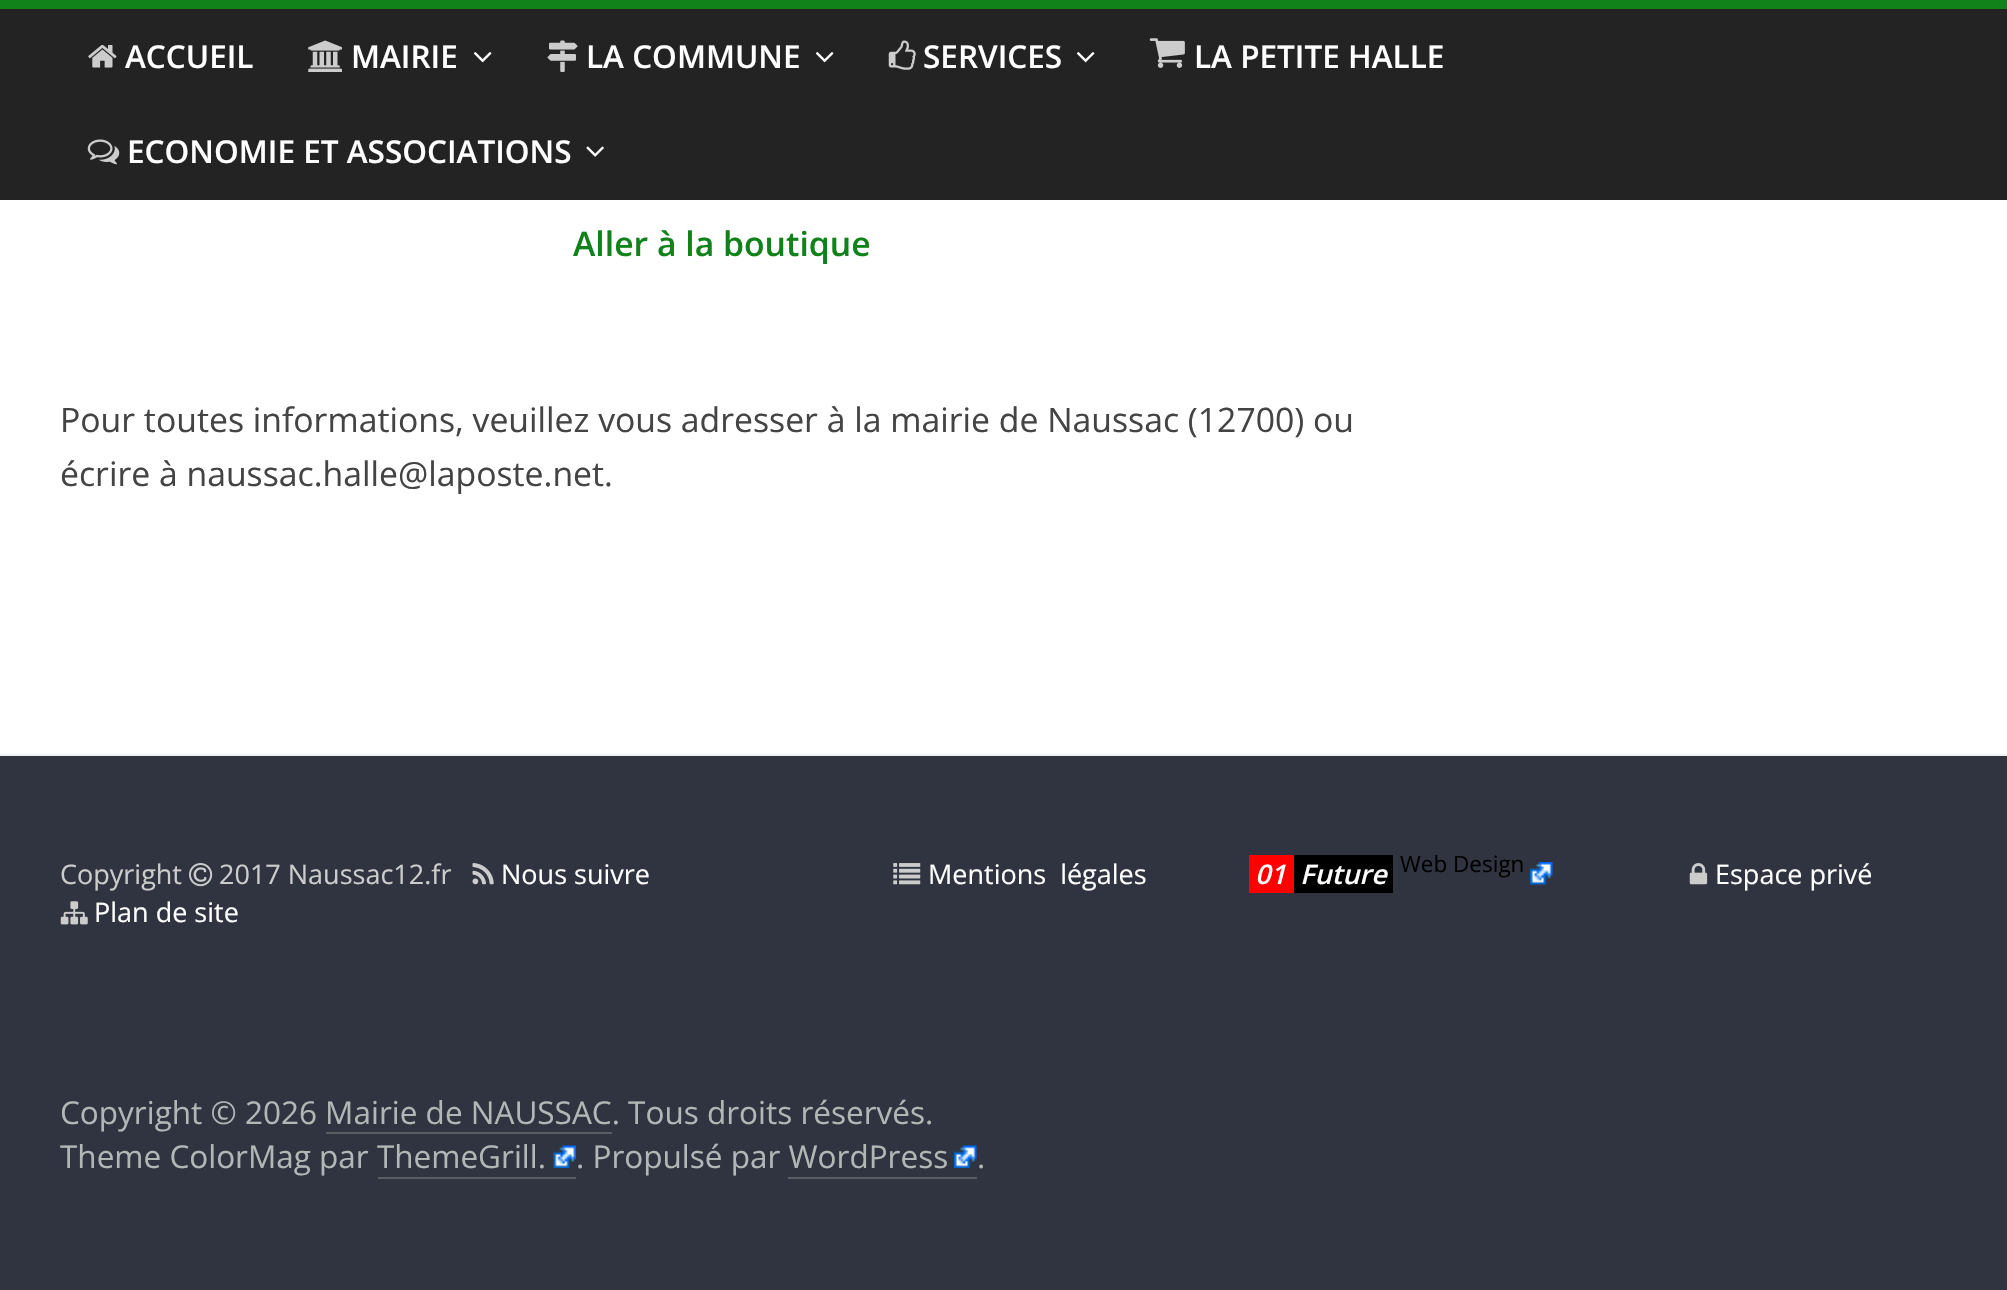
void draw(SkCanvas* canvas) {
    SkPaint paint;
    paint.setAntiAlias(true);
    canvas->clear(0xFFFFFFFF);
    paint.setColor(0xFF232323);
    canvas->drawRect(SkRect::MakeXYWH(0, 9, 2007, 191), paint);
    paint.setColor(0xFF11811A);
    canvas->drawRect(SkRect::MakeXYWH(0, 0, 2007, 9), paint);
    canvas->drawImageRect(SkImages::DeferredFromEncodedData(SkData::MakeFromFileName("img1.png")), SkRect::MakeXYWH(88, 45, 29, 23), SkSamplingOptions());
    SkFont font1(fontMgr->matchFamilyStyle("Open Sans", SkFontStyle(600, SkFontStyle::kNormal_Width, SkFontStyle::kUpright_Slant)), 31.5f);
    font1.setSubpixel(true);
    paint.setColor(0xFFFFFFFF);
    canvas->drawString("ACCUEIL", 125, 68, font1, paint);
    canvas->drawImageRect(SkImages::DeferredFromEncodedData(SkData::MakeFromFileName("img2.png")), SkRect::MakeXYWH(308, 40, 34, 32), SkSamplingOptions());
    canvas->drawString("MAIRIE", 351, 68, font1, paint);
    canvas->drawImageRect(SkImages::DeferredFromEncodedData(SkData::MakeFromFileName("img3.png")), SkRect::MakeXYWH(473, 52, 19, 11), SkSamplingOptions());
    canvas->drawImageRect(SkImages::DeferredFromEncodedData(SkData::MakeFromFileName("img4.png")), SkRect::MakeXYWH(547, 40, 31, 32), SkSamplingOptions());
    canvas->drawString("LA COMMUNE", 586, 68, font1, paint);
    canvas->drawImageRect(SkImages::DeferredFromEncodedData(SkData::MakeFromFileName("img3.png")), SkRect::MakeXYWH(815, 52, 19, 11), SkSamplingOptions());
    canvas->drawImageRect(SkImages::DeferredFromEncodedData(SkData::MakeFromFileName("img5.png")), SkRect::MakeXYWH(888, 40, 28, 30), SkSamplingOptions());
    canvas->drawString("SERVICES", 923, 68, font1, paint);
    canvas->drawImageRect(SkImages::DeferredFromEncodedData(SkData::MakeFromFileName("img3.png")), SkRect::MakeXYWH(1076, 52, 19, 11), SkSamplingOptions());
    canvas->drawImageRect(SkImages::DeferredFromEncodedData(SkData::MakeFromFileName("img6.png")), SkRect::MakeXYWH(1149, 38, 36, 30), SkSamplingOptions());
    canvas->drawString("LA PETITE HALLE", 1194, 68, font1, paint);
    canvas->drawImageRect(SkImages::DeferredFromEncodedData(SkData::MakeFromFileName("img7.png")), SkRect::MakeXYWH(87, 139, 33, 26), SkSamplingOptions());
    canvas->drawString("ECONOMIE ET ASSOCIATIONS", 127, 163, font1, paint);
    canvas->drawImageRect(SkImages::DeferredFromEncodedData(SkData::MakeFromFileName("img8.png")), SkRect::MakeXYWH(586, 146, 18, 11), SkSamplingOptions());
    SkFont font2(fontMgr->matchFamilyStyle("Open Sans", SkFontStyle(600, SkFontStyle::kNormal_Width, SkFontStyle::kUpright_Slant)), 33.75f);
    font2.setSubpixel(true);
    paint.setColor(0xFF11811A);
    canvas->drawString("Aller à la boutique", 573, 256, font2, paint);
    SkFont font3(fontMgr->matchFamilyStyle("Open Sans", SkFontStyle::Normal()), 33.75f);
    font3.setSubpixel(true);
    paint.setColor(0xFF444444);
    canvas->drawString("Pour toutes informations, veuillez vous adresser à la mairie de Naussac (12700) ou", 60, 432, font3, paint);
    canvas->drawString("écrire à naussac.halle@laposte.net.", 60, 486, font3, paint);
    paint.setColor(0xFF303440);
    canvas->drawRect(SkRect::MakeXYWH(0, 756, 2007, 534), paint);
    paint.setColor(0xFFF2F2F2);
    canvas->drawRect(SkRect::MakeXYWH(0, 754, 2007, 2), paint);
    SkFont font4(fontMgr->matchFamilyStyle("Open Sans", SkFontStyle::Normal()), 27);
    font4.setSubpixel(true);
    paint.setColor(0xFFCCCCCC);
    canvas->drawString("Copyright", 60, 884, font4, paint);
    canvas->drawImageRect(SkImages::DeferredFromEncodedData(SkData::MakeFromFileName("img9.png")), SkRect::MakeXYWH(189, 863, 24, 24), SkSamplingOptions());
    canvas->drawString("2017 Naussac12.fr", 219, 884, font4, paint);
    canvas->drawImageRect(SkImages::DeferredFromEncodedData(SkData::MakeFromFileName("img10.png")), SkRect::MakeXYWH(472, 863, 22, 22), SkSamplingOptions());
    paint.setColor(0xFFFFFFFF);
    canvas->drawString("Nous suivre", 501, 884, font4, paint);
    canvas->drawImageRect(SkImages::DeferredFromEncodedData(SkData::MakeFromFileName("img11.png")), SkRect::MakeXYWH(60, 901, 28, 24), SkSamplingOptions());
    canvas->drawString("Plan de site", 94, 922, font4, paint);
    canvas->drawImageRect(SkImages::DeferredFromEncodedData(SkData::MakeFromFileName("img12.png")), SkRect::MakeXYWH(893, 863, 28, 22), SkSamplingOptions());
    canvas->drawString("Mentions  légales", 928, 884, font4, paint);
    paint.setColor(0xFFFF0000);
    canvas->drawRect(SkRect::MakeXYWH(1249, 855, 45, 38), paint);
    SkFont font5(fontMgr->matchFamilyStyle("Open Sans", SkFontStyle(600, SkFontStyle::kNormal_Width, SkFontStyle::kItalic_Slant)), 27);
    font5.setSubpixel(true);
    paint.setColor(0xFFFFFFFF);
    canvas->drawString("01", 1255, 884, font5, paint);
    paint.setColor(0xFF000000);
    canvas->drawRect(SkRect::MakeXYWH(1294, 855, 99, 38), paint);
    paint.setColor(0xFFFFFFFF);
    canvas->drawString("Future", 1300, 884, font5, paint);
    SkFont font6(fontMgr->matchFamilyStyle("Open Sans", SkFontStyle::Normal()), 22.5f);
    font6.setSubpixel(true);
    paint.setColor(0xFF000000);
    canvas->drawString("Web Design", 1400, 872, font6, paint);
    canvas->drawImageRect(SkImages::DeferredFromEncodedData(SkData::MakeFromFileName("img13.png")), SkRect::MakeXYWH(1530, 862, 23, 23), SkSamplingOptions());
    canvas->drawImageRect(SkImages::DeferredFromEncodedData(SkData::MakeFromFileName("img14.png")), SkRect::MakeXYWH(1689, 863, 19, 22), SkSamplingOptions());
    paint.setColor(0xFFFFFFFF);
    canvas->drawString("Espace privé", 1715, 884, font4, paint);
    SkFont font7(fontMgr->matchFamilyStyle("Open Sans", SkFontStyle::Normal()), 31.5f);
    font7.setSubpixel(true);
    paint.setColor(0xFFB1B6B6);
    canvas->drawString("Copyright © 2026 Mairie de NAUSSAC. Tous droits réservés.", 60, 1124, font7, paint);
    paint.setColor(0xFF5A5D62);
    canvas->drawRect(SkRect::MakeXYWH(326, 1132, 286, 2), paint);
    paint.setColor(0xFFB1B6B6);
    canvas->drawString("Theme ColorMag par ThemeGrill.", 60, 1168, font7, paint);
    canvas->drawImageRect(SkImages::DeferredFromEncodedData(SkData::MakeFromFileName("img15.png")), SkRect::MakeXYWH(553, 1145, 23, 23), SkSamplingOptions());
    canvas->drawString(". Propulsé par WordPress", 576, 1168, font7, paint);
    canvas->drawImageRect(SkImages::DeferredFromEncodedData(SkData::MakeFromFileName("img16.png")), SkRect::MakeXYWH(954, 1145, 23, 23), SkSamplingOptions());
    canvas->drawString(".", 977, 1168, font7, paint);
    paint.setColor(0xFF5A5D62);
    canvas->drawRect(SkRect::MakeXYWH(378, 1177, 198, 2), paint);
    canvas->drawRect(SkRect::MakeXYWH(788, 1177, 189, 2), paint);
}
